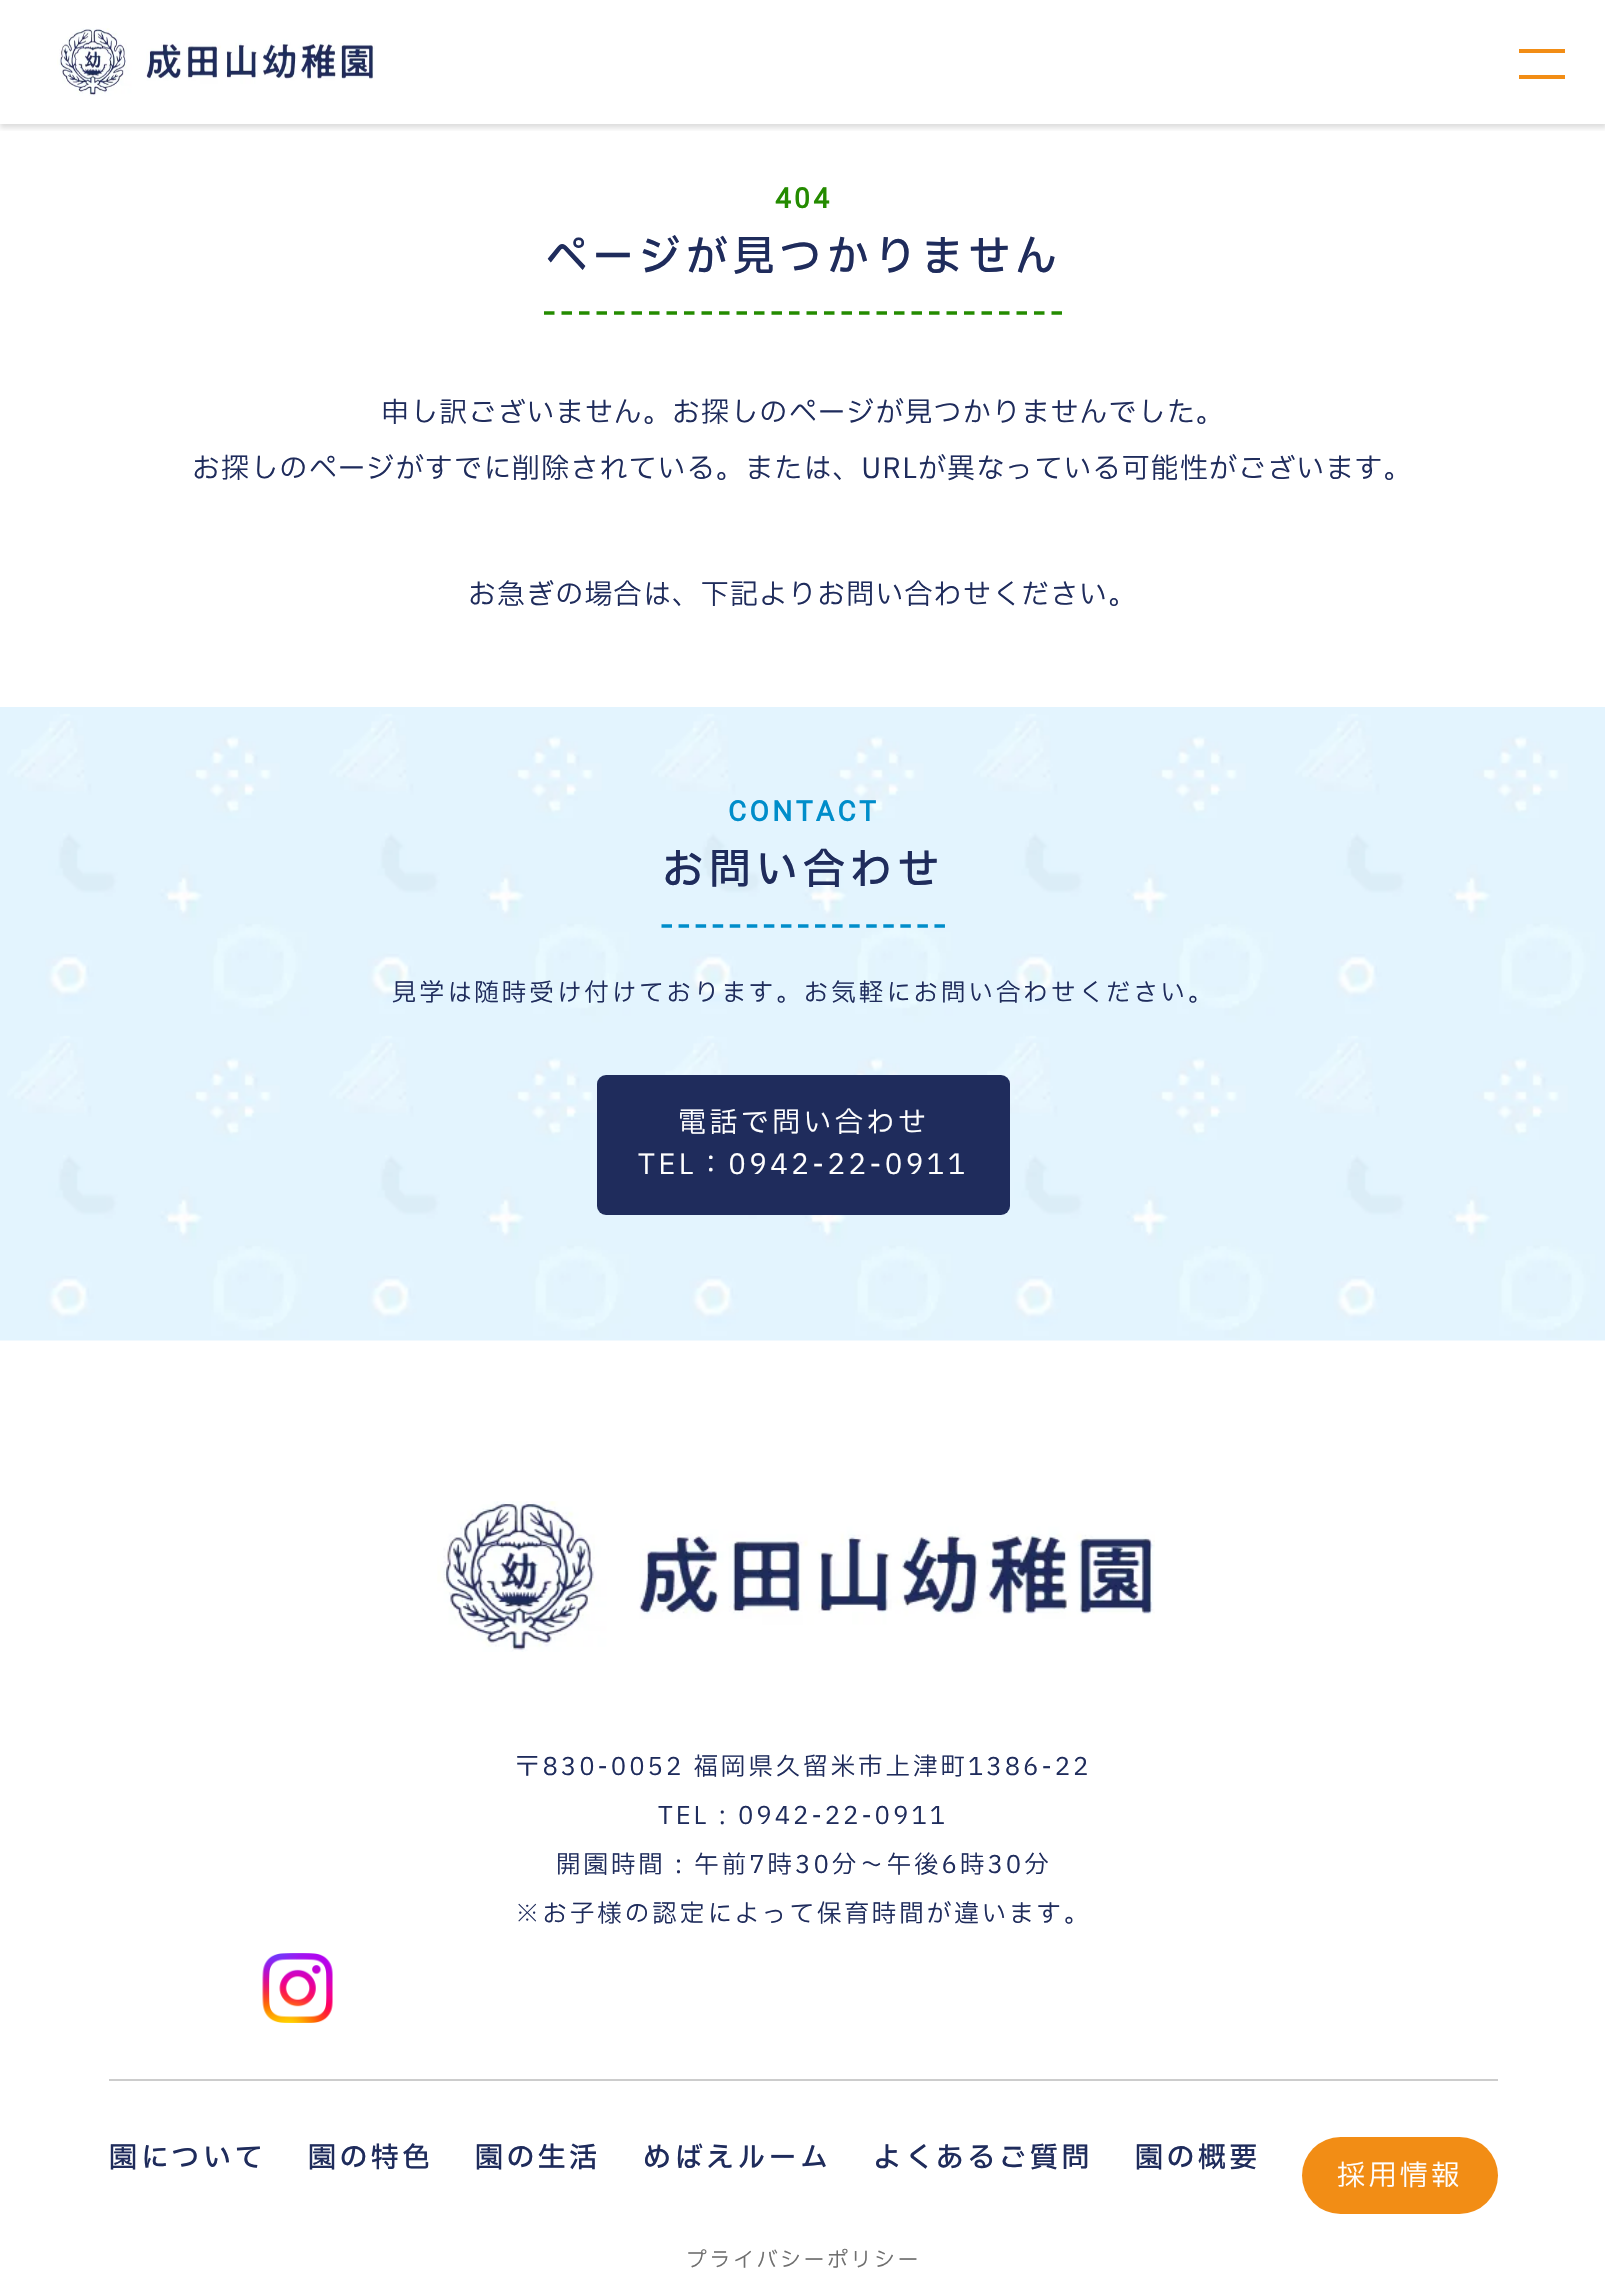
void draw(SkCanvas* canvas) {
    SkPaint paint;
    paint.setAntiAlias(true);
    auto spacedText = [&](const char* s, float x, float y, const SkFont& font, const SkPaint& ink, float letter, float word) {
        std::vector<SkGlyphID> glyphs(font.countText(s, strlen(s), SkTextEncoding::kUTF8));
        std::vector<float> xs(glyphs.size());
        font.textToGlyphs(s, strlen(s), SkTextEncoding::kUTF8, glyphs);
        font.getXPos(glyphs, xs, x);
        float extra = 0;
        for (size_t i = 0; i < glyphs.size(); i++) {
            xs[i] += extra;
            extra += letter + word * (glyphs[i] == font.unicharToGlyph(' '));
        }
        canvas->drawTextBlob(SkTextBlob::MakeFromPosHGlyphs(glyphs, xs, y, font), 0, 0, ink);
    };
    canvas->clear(0xFFFFFFFF);
    canvas->save();
    canvas->clipRect(SkRect::MakeXYWH(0, 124, 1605, 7));
    paint.setColor(0x21000000);
    paint.setMaskFilter(SkMaskFilter::MakeBlur(kNormal_SkBlurStyle, 2.5f));
    canvas->drawRect(SkRect::MakeXYWH(0, 4, 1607, 124), paint);
    paint.setMaskFilter(nullptr);
    canvas->restore();
    canvas->drawImageRect(SkImages::DeferredFromEncodedData(SkData::MakeFromFileName("img1.png")), SkRect::MakeXYWH(57, 28, 318, 68), SkSamplingOptions());
    paint.setColor(0xFFF28D15);
    canvas->drawRect(SkRect::MakeXYWH(1519, 49, 46, 4), paint);
    canvas->drawRect(SkRect::MakeXYWH(1519, 75, 46, 4), paint);
    paint.setStyle(SkPaint::kStroke_Style);
    paint.setStrokeWidth(3.5f);
    paint.setColor(0xFF248B00);
    paint.setPathEffect(SkDashPathEffect::Make({{10.5f, 7}}, 0));
    canvas->drawPath(SkPathBuilder().moveTo(544, 313).lineTo(1062, 313).detach(), paint);
    paint.setPathEffect(nullptr);
    SkFont font1(fontMgr->matchFamilyStyle("Roboto", SkFontStyle::Bold()), 28);
    font1.setSubpixel(true);
    paint.setStyle(SkPaint::kFill_Style);
    spacedText("404", 775, 208, font1, paint, 3.4f, 0);
    SkFont font2(fontMgr->matchFamilyStyle("IBM Plex Sans JP", SkFontStyle(500, SkFontStyle::kNormal_Width, SkFontStyle::kUpright_Slant)), 42);
    font2.setSubpixel(true);
    paint.setColor(0xFF1F2C5C);
    spacedText("ページが見つかりません", 545, 271, font2, paint, 5, 0);
    SkFont font3(fontMgr->matchFamilyStyle("IBM Plex Sans JP", SkFontStyle::Normal()), 28);
    font3.setSubpixel(true);
    spacedText("申し訳ございません。お探しのページが見つかりませんでした。", 381, 422, font3, paint, 1.1f, 0);
    spacedText("お探しのページがすでに削除されている。または、URLが異なっている可能性がございます。", 192, 478, font3, paint, 1.1f, 0);
    spacedText("お急ぎの場合は、下記よりお問い合わせください。", 468, 604, font3, paint, 1.1f, 0);
    canvas->drawImageRect(SkImages::DeferredFromEncodedData(SkData::MakeFromFileName("img2.png")), SkRect::MakeXYWH(0, 707, 1605, 634), SkSamplingOptions());
    paint.setStyle(SkPaint::kStroke_Style);
    paint.setColor(0xFF008DCA);
    paint.setPathEffect(SkDashPathEffect::Make({{10.5f, 6.56f}}, 0));
    canvas->drawPath(SkPathBuilder().moveTo(661.5f, 926).lineTo(945, 926).detach(), paint);
    paint.setPathEffect(nullptr);
    paint.setStyle(SkPaint::kFill_Style);
    spacedText("CONTACT", 728, 821, font1, paint, 3.4f, 0);
    paint.setColor(0xFF1F2C5C);
    spacedText("お問い合わせ", 662, 884, font2, paint, 5, 0);
    SkFont font4(fontMgr->matchFamilyStyle("IBM Plex Sans JP", SkFontStyle::Normal()), 24.5f);
    font4.setSubpixel(true);
    spacedText("見学は随時受け付けております。お気軽にお問い合わせください。", 392, 1001, font4, paint, 2.95f, 0);
    canvas->drawRoundRect(SkRect::MakeXYWH(597, 1075, 413, 140), 9, 9, paint);
    paint.setColor(0xFFFFFFFF);
    spacedText("電話で問い合わせ", 678, 1132, font3, paint, 3.4f, 0);
    spacedText("TEL：0942-22-0911", 638, 1174, font3, paint, 3.4f, 0);
    canvas->drawImageRect(SkImages::DeferredFromEncodedData(SkData::MakeFromFileName("img3.png")), SkRect::MakeXYWH(437, 1501, 718, 151), SkSamplingOptions());
    paint.setColor(0xFF1F2C5C);
    spacedText("〒830-0052 福岡県久留米市上津町1386-22", 515, 1775, font4, paint, 2.95f, 0);
    spacedText("TEL : 0942-22-0911", 658, 1824, font4, paint, 2.95f, 0);
    spacedText("開園時間 : 午前7時30分～午後6時30分", 556, 1873, font4, paint, 2.95f, 0);
    spacedText("※お子様の認定によって保育時間が違います。", 515, 1922, font4, paint, 2.95f, 0);
    canvas->drawImageRect(SkImages::DeferredFromEncodedData(SkData::MakeFromFileName("img4.png")), SkRect::MakeXYWH(262, 1953, 71, 70), SkSamplingOptions());
    paint.setColor(0xFFCCCCCC);
    canvas->drawRect(SkRect::MakeXYWH(109, 2079, 1389, 2), paint);
    SkFont font5(fontMgr->matchFamilyStyle("IBM Plex Sans JP", SkFontStyle(500, SkFontStyle::kNormal_Width, SkFontStyle::kUpright_Slant)), 28);
    font5.setSubpixel(true);
    paint.setColor(0xFF1F2C5C);
    spacedText("園について", 109, 2167, font5, paint, 3.4f, 0);
    spacedText("園の特色", 308, 2167, font5, paint, 3.4f, 0);
    spacedText("園の生活", 475, 2167, font5, paint, 3.4f, 0);
    spacedText("めばえルーム", 643, 2167, font5, paint, 3.4f, 0);
    spacedText("よくあるご質問", 873, 2167, font5, paint, 3.4f, 0);
    spacedText("園の概要", 1135, 2167, font5, paint, 3.4f, 0);
    paint.setColor(0xFFF28D15);
    canvas->drawRoundRect(SkRect::MakeXYWH(1302, 2137, 196, 77), 38.5f, 38.5f, paint);
    paint.setColor(0xFFFFFFFF);
    spacedText("採用情報", 1337, 2185, font3, paint, 3.4f, 0);
    SkFont font6(fontMgr->matchFamilyStyle("IBM Plex Sans JP", SkFontStyle::Normal()), 21);
    font6.setSubpixel(true);
    paint.setColor(0xFF6F6F6F);
    spacedText("プライバシーポリシー", 686, 2267, font6, paint, 2.5f, 0);
}
